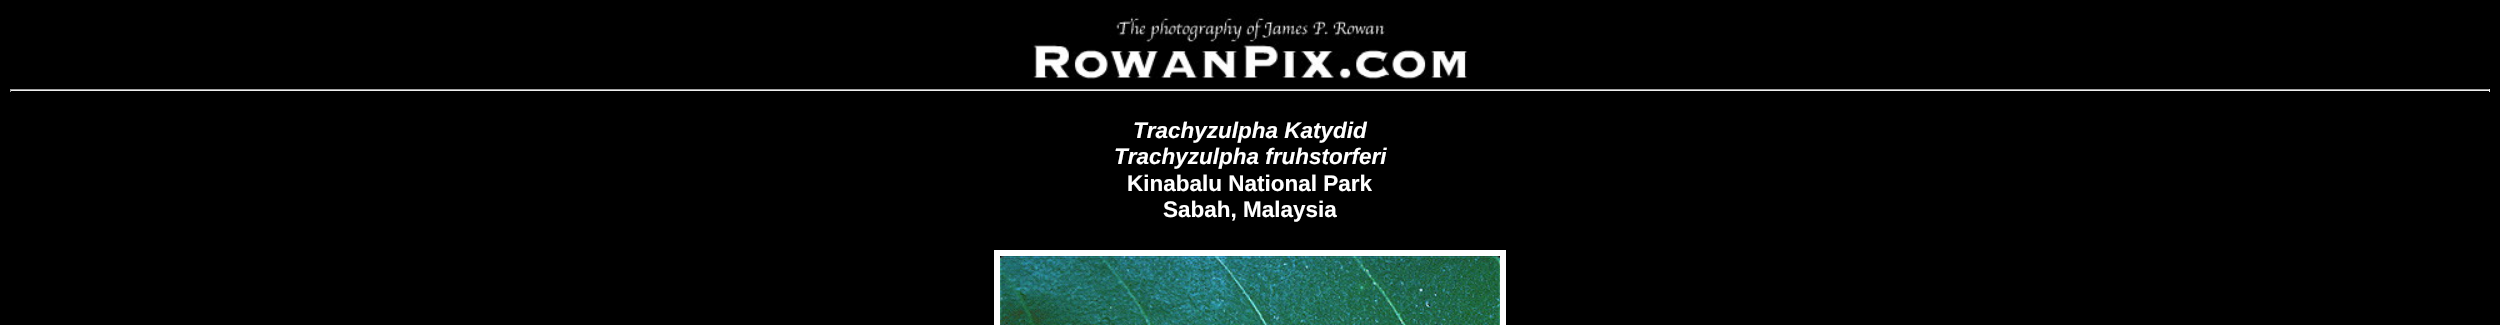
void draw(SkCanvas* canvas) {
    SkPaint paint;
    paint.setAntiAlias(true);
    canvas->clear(0xFF000000);
    canvas->drawImageRect(SkImages::DeferredFromEncodedData(SkData::MakeFromFileName("img1.png")), SkRect::MakeXYWH(1031, 10, 439, 69), SkSamplingOptions());
    paint.setColor(0xFF9F9F9F);
    canvas->drawRect(SkRect::MakeXYWH(10, 89, 2480, 1), paint);
    paint.setColor(0xFFEEEEEE);
    canvas->drawRect(SkRect::MakeXYWH(2489, 89, 1, 3), paint);
    canvas->drawRect(SkRect::MakeXYWH(10, 90, 2480, 1), paint);
    paint.setColor(0xFF9F9F9F);
    canvas->drawRect(SkRect::MakeXYWH(10, 89, 1, 3), paint);
    SkFont font1(fontMgr->matchFamilyStyle("Liberation Sans", SkFontStyle::BoldItalic()), 22.5f);
    font1.setSubpixel(true);
    paint.setColor(0xFFFFFFFF);
    canvas->drawString("Trachyzulpha Katydid", 1133, 138, font1, paint);
    canvas->drawString("Trachyzulpha fruhstorferi", 1114, 164, font1, paint);
    SkFont font2(fontMgr->matchFamilyStyle("Liberation Sans", SkFontStyle::Bold()), 22.5f);
    font2.setSubpixel(true);
    canvas->drawString("Kinabalu National Park", 1127, 191, font2, paint);
    canvas->drawString("Sabah, Malaysia", 1163, 217, font2, paint);
    paint.setStyle(SkPaint::kStroke_Style);
    paint.setStrokeWidth(6);
    canvas->drawRect(SkRect::MakeXYWH(997, 253, 506, 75), paint);
    canvas->drawImageRect(SkImages::DeferredFromEncodedData(SkData::MakeFromFileName("img2.png")), SkRect::MakeXYWH(1000, 256, 500, 69), SkSamplingOptions());
}
